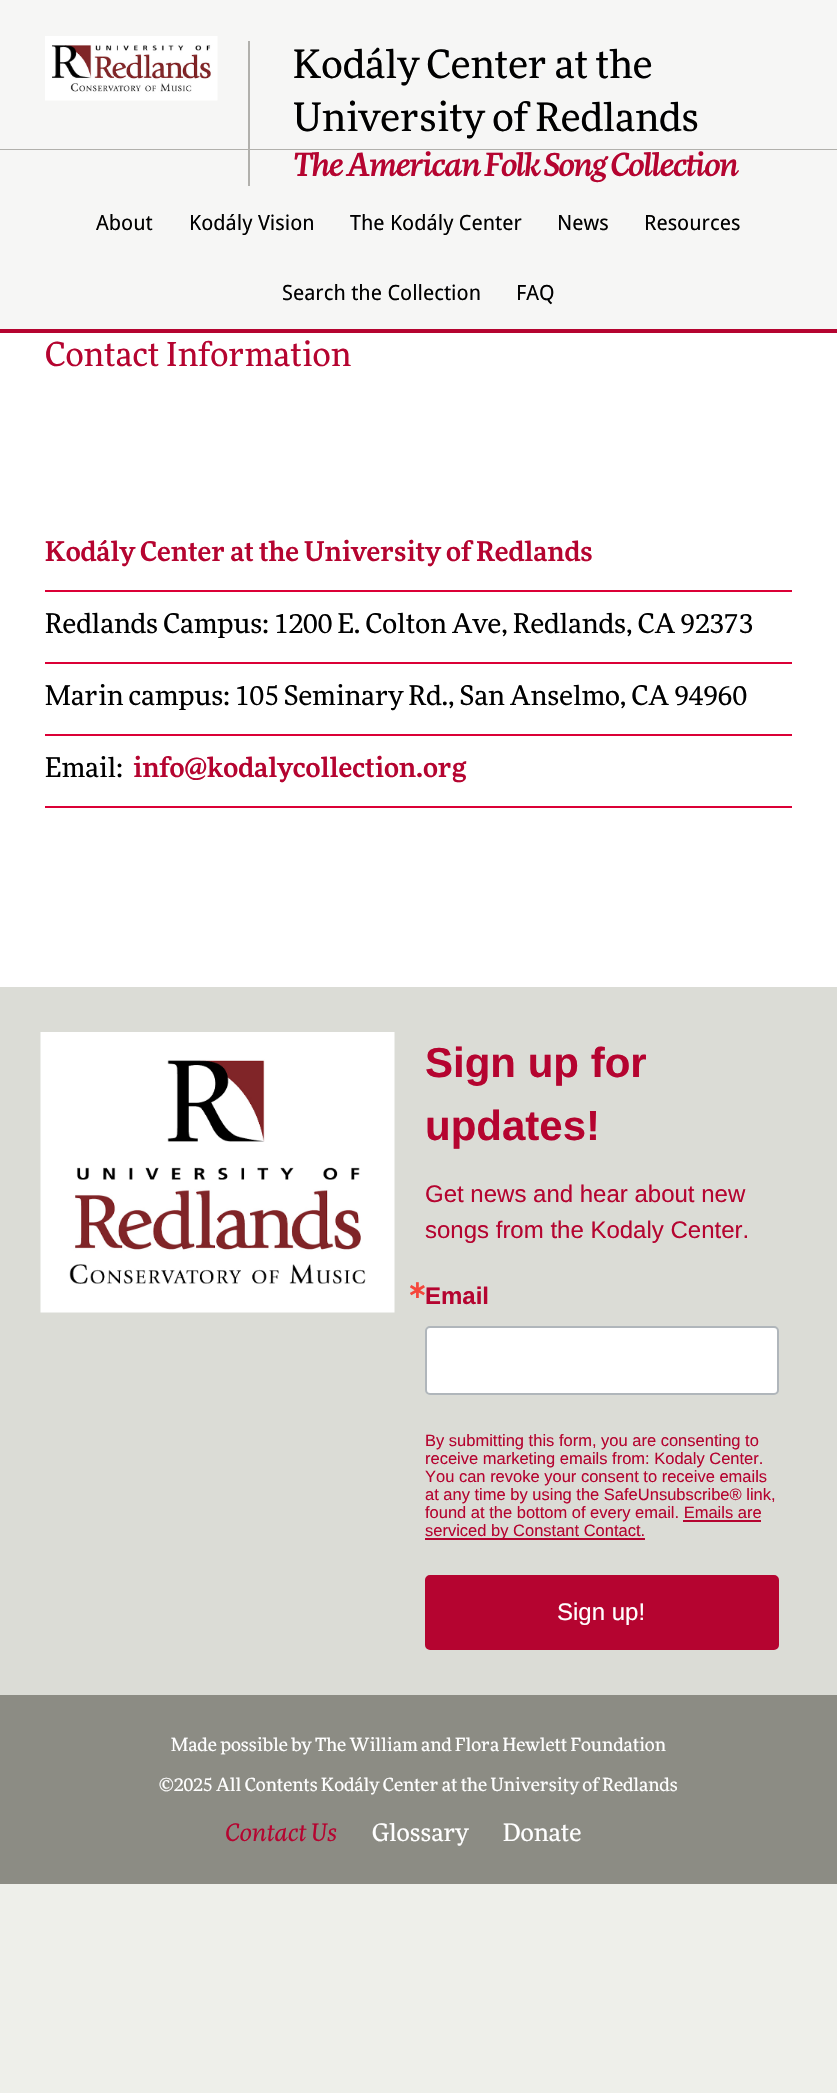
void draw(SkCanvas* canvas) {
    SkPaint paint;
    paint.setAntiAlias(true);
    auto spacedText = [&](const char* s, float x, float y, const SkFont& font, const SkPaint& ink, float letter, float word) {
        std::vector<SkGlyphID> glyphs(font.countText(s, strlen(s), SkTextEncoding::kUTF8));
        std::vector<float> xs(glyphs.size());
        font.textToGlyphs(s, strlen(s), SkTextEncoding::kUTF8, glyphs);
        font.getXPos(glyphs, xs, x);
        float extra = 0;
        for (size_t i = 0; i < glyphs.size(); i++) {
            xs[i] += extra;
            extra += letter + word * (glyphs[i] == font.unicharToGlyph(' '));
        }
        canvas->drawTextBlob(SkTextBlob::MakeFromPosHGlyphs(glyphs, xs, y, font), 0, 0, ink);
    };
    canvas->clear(0xFFEEEFEA);
    paint.setColor(0xFFF6F6F5);
    canvas->drawRect(SkRect::MakeXYWH(0, 0, 837, 149), paint);
    paint.setColor(0xFFB1B0AC);
    canvas->drawRect(SkRect::MakeXYWH(0, 149, 837, 1), paint);
    canvas->drawImageRect(SkImages::DeferredFromEncodedData(SkData::MakeFromFileName("img1.png")), SkRect::MakeXYWH(45, 36, 173, 65), SkSamplingOptions());
    paint.setColor(0xFFF6F6F5);
    canvas->drawRect(SkRect::MakeXYWH(0, 150, 837, 179), paint);
    paint.setColor(0xFFB1B0AC);
    canvas->drawRect(SkRect::MakeXYWH(248, 41, 2, 145), paint);
    SkFont font1(fontMgr->matchFamilyStyle("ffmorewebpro", SkFontStyle(500, SkFontStyle::kNormal_Width, SkFontStyle::kUpright_Slant)), 39);
    font1.setSubpixel(true);
    paint.setColor(0xFF000000);
    canvas->drawString("Kodály Center at the", 293, 78, font1, paint);
    canvas->drawString("University of Redlands", 293, 131, font1, paint);
    SkFont font2(fontMgr->matchFamilyStyle("ffmorewebpro", SkFontStyle(500, SkFontStyle::kNormal_Width, SkFontStyle::kItalic_Slant)), 31.5f);
    font2.setSubpixel(true);
    paint.setColor(0xFFB50430);
    spacedText("The American Folk Song Collection", 293, 176, font2, paint, -1.5f, 0);
    canvas->drawRect(SkRect::MakeXYWH(0, 329, 837, 4), paint);
    SkFont font3(fontMgr->matchFamilyStyle("Droid Sans", SkFontStyle::Normal()), 21);
    font3.setSubpixel(true);
    paint.setColor(0xFF000000);
    canvas->drawString("About", 96, 230, font3, paint);
    canvas->drawString("Kodály Vision", 189, 230, font3, paint);
    canvas->drawString("The Kodály Center", 350, 230, font3, paint);
    canvas->drawString("News", 557, 230, font3, paint);
    canvas->drawString("Resources", 644, 230, font3, paint);
    canvas->drawString("Search the Collection", 282, 300, font3, paint);
    canvas->drawString("FAQ", 516, 300, font3, paint);
    paint.setColor(0xFFFFFFFF);
    canvas->drawRect(SkRect::MakeXYWH(0, 333, 837, 654), paint);
    SkFont font4(fontMgr->matchFamilyStyle("ffmorewebpro", SkFontStyle(500, SkFontStyle::kNormal_Width, SkFontStyle::kUpright_Slant)), 33);
    font4.setSubpixel(true);
    paint.setColor(0xFFB50430);
    canvas->drawString("Contact Information", 45, 366, font4, paint);
    paint.setColor(0xFFDB0036);
    canvas->drawRect(SkRect::MakeXYWH(45, 590, 747, 2), paint);
    SkFont font5(fontMgr->matchFamilyStyle("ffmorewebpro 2", SkFontStyle(500, SkFontStyle::kNormal_Width, SkFontStyle::kUpright_Slant)), 27);
    font5.setSubpixel(true);
    paint.setColor(0xFFB50430);
    canvas->drawString("Kodály Center at the University of Redlands", 45, 561, font5, paint);
    paint.setColor(0xFFDB0036);
    canvas->drawRect(SkRect::MakeXYWH(45, 662, 747, 2), paint);
    SkFont font6(fontMgr->matchFamilyStyle("ffmorewebpro", SkFontStyle(500, SkFontStyle::kNormal_Width, SkFontStyle::kUpright_Slant)), 27);
    font6.setSubpixel(true);
    paint.setColor(0xFF000000);
    canvas->drawString("Redlands Campus: 1200 E. Colton Ave, Redlands, CA 92373", 45, 633, font6, paint);
    paint.setColor(0xFFDB0036);
    canvas->drawRect(SkRect::MakeXYWH(45, 734, 747, 2), paint);
    paint.setColor(0xFF000000);
    canvas->drawString("Marin campus: 105 Seminary Rd., San Anselmo, CA 94960", 45, 705, font6, paint);
    paint.setColor(0xFFDB0036);
    canvas->drawRect(SkRect::MakeXYWH(45, 806, 747, 2), paint);
    paint.setColor(0xFF000000);
    canvas->drawString("Email:", 45, 777, font6, paint);
    paint.setColor(0xFFB50430);
    canvas->drawString("info@kodalycollection.org", 133, 777, font5, paint);
    paint.setColor(0xFFDBDCD6);
    canvas->drawRect(SkRect::MakeXYWH(0, 987, 837, 708), paint);
    canvas->drawImageRect(SkImages::DeferredFromEncodedData(SkData::MakeFromFileName("img2.png")), SkRect::MakeXYWH(40, 1032, 355, 281), SkSamplingOptions());
    SkFont font7(fontMgr->matchFamilyStyle("Liberation Sans", SkFontStyle::Bold()), 42);
    font7.setSubpixel(true);
    paint.setColor(0xFFB50430);
    canvas->drawString("Sign up for", 425, 1077, font7, paint);
    canvas->drawString("updates!", 425, 1140, font7, paint);
    SkFont font8(fontMgr->matchFamilyStyle("Liberation Sans", SkFontStyle::Normal()), 24);
    font8.setSubpixel(true);
    canvas->drawString("Get news and hear about new", 425, 1202, font8, paint);
    canvas->drawString("songs from the Kodaly Center.", 425, 1238, font8, paint);
    SkFont font9(fontMgr->matchFamilyStyle("DejaVu Sans", SkFontStyle::Bold()), 24);
    font9.setSubpixel(true);
    paint.setColor(0xFFF5463B);
    canvas->drawString("∗", 407, 1298, font9, paint);
    SkFont font10(fontMgr->matchFamilyStyle("Liberation Sans", SkFontStyle::Bold()), 24);
    font10.setSubpixel(true);
    paint.setColor(0xFFB50430);
    canvas->drawString("Email", 425, 1304, font10, paint);
    paint.setColor(0xFFFFFFFF);
    canvas->drawRoundRect(SkRect::MakeXYWH(426, 1327, 352, 67), 4, 4, paint);
    paint.setStyle(SkPaint::kStroke_Style);
    paint.setStrokeWidth(2);
    paint.setColor(0xFFB0B6BB);
    canvas->drawRoundRect(SkRect::MakeXYWH(426, 1327, 352, 67), 4, 4, paint);
    SkFont font11(fontMgr->matchFamilyStyle("Liberation Sans", SkFontStyle::Normal()), 16.5f);
    font11.setSubpixel(true);
    paint.setStyle(SkPaint::kFill_Style);
    paint.setColor(0xFFB50430);
    canvas->drawString("By submitting this form, you are consenting to", 425, 1446, font11, paint);
    canvas->drawString("receive marketing emails from: Kodaly Center.", 425, 1464, font11, paint);
    canvas->drawString("You can revoke your consent to receive emails", 425, 1482, font11, paint);
    canvas->drawString("at any time by using the SafeUnsubscribe® link,", 425, 1500, font11, paint);
    canvas->drawString("found at the bottom of every email. Emails are", 425, 1518, font11, paint);
    canvas->drawRect(SkRect::MakeXYWH(425, 1538, 220, 2), paint);
    canvas->drawString("serviced by Constant Contact.", 425, 1536, font11, paint);
    canvas->drawRect(SkRect::MakeXYWH(683, 1520, 78, 2), paint);
    canvas->drawRoundRect(SkRect::MakeXYWH(426, 1576, 352, 73), 4, 4, paint);
    paint.setStyle(SkPaint::kStroke_Style);
    canvas->drawRoundRect(SkRect::MakeXYWH(426, 1576, 352, 73), 4, 4, paint);
    paint.setStyle(SkPaint::kFill_Style);
    paint.setColor(0xFFFFFFFF);
    canvas->drawString("Sign up!", 557, 1620, font8, paint);
    paint.setColor(0xFF8C8C84);
    canvas->drawRect(SkRect::MakeXYWH(0, 1695, 837, 189), paint);
    SkFont font12(fontMgr->matchFamilyStyle("ffmorewebpro", SkFontStyle(500, SkFontStyle::kNormal_Width, SkFontStyle::kUpright_Slant)), 18);
    font12.setSubpixel(true);
    paint.setColor(0xFFFFFFFF);
    canvas->drawString("Made possible by The William and Flora Hewlett Foundation", 171, 1751, font12, paint);
    canvas->drawString("©2025 All Contents Kodály Center at the University of Redlands", 159, 1791, font12, paint);
    SkFont font13(fontMgr->matchFamilyStyle("ffmorewebpro 2", SkFontStyle(500, SkFontStyle::kNormal_Width, SkFontStyle::kItalic_Slant)), 24);
    font13.setSubpixel(true);
    paint.setColor(0xFFB50430);
    canvas->drawString("Contact Us", 225, 1841, font13, paint);
    SkFont font14(fontMgr->matchFamilyStyle("ffmorewebpro", SkFontStyle(500, SkFontStyle::kNormal_Width, SkFontStyle::kUpright_Slant)), 24);
    font14.setSubpixel(true);
    paint.setColor(0xFFFFFFFF);
    canvas->drawString("Glossary", 372, 1841, font14, paint);
    canvas->drawString("Donate", 503, 1841, font14, paint);
}
